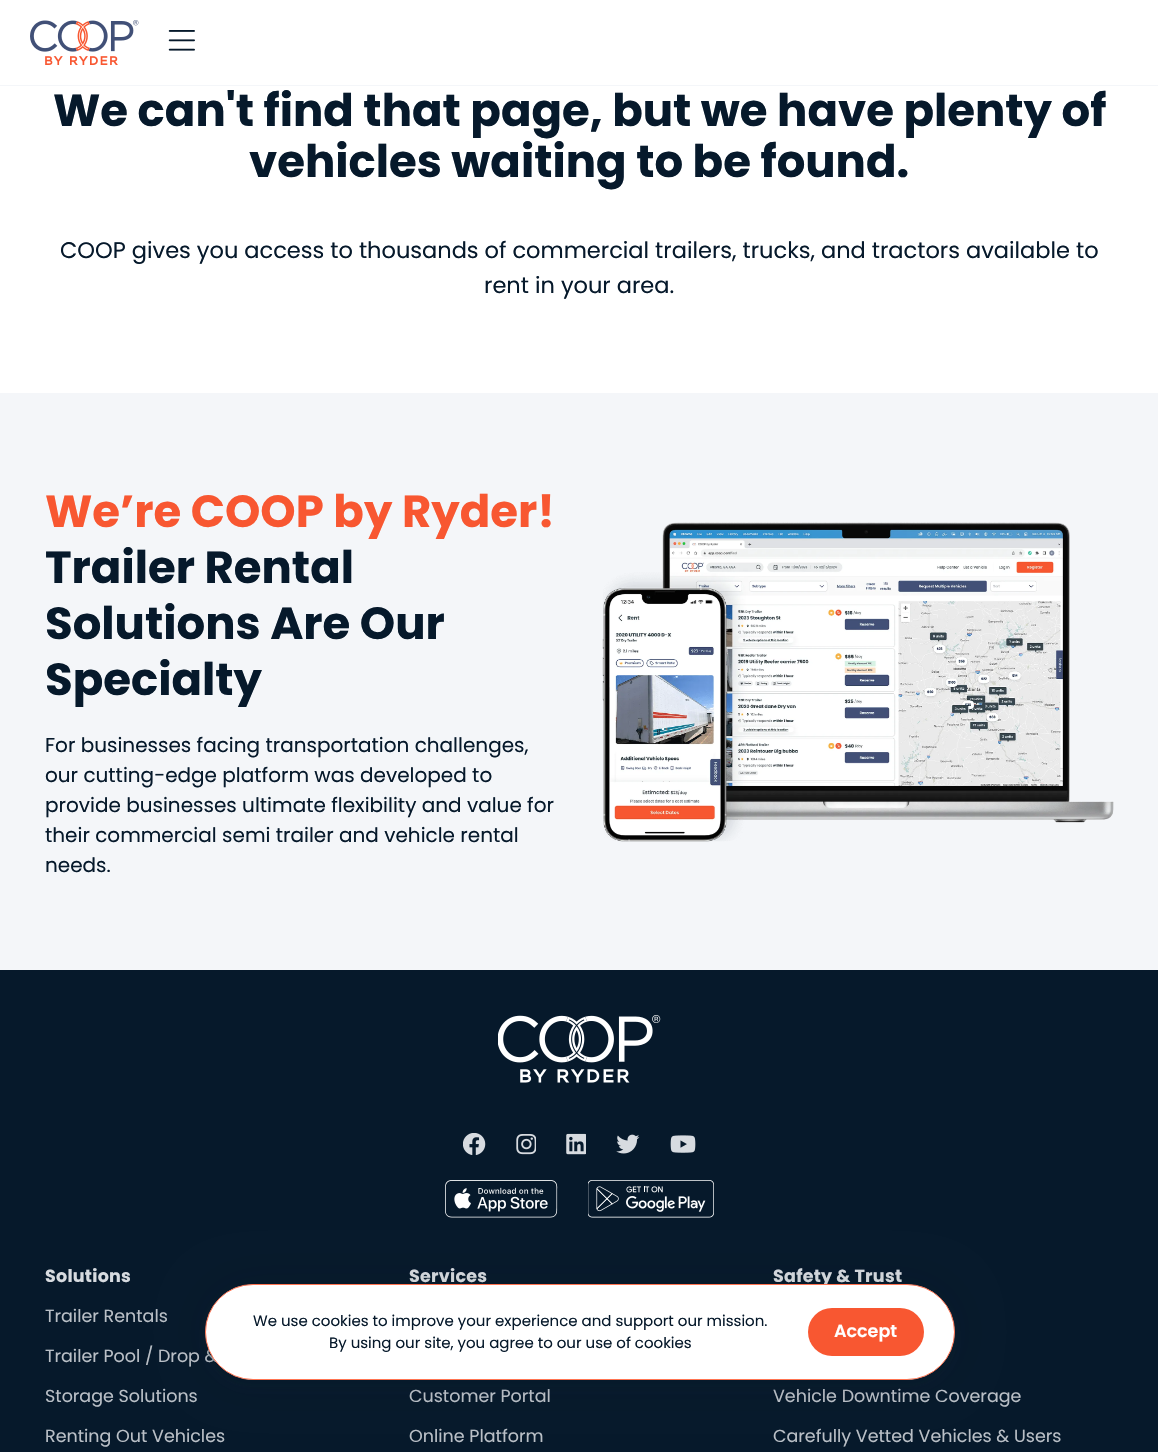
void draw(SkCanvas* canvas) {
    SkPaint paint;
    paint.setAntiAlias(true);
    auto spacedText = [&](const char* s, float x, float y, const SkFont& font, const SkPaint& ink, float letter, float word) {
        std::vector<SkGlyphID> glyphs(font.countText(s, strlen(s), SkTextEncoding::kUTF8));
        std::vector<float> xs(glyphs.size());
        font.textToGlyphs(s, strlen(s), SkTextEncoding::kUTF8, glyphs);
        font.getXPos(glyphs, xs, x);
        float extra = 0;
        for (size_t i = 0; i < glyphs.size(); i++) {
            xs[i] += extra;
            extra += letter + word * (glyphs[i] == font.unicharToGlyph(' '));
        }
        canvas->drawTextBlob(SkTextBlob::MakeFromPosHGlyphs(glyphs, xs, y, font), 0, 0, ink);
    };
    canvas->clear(0xFFFFFFFF);
    paint.setColor(0xFFF4F6F9);
    canvas->drawRect(SkRect::MakeXYWH(0, 85, 1158, 1), paint);
    canvas->drawImageRect(SkImages::DeferredFromEncodedData(SkData::MakeFromFileName("img1.png")), SkRect::MakeXYWH(30, 20, 109, 45), SkSamplingOptions());
    canvas->drawImageRect(SkImages::DeferredFromEncodedData(SkData::MakeFromFileName("img2.png")), SkRect::MakeXYWH(168, 30, 27, 21), SkSamplingOptions());
    SkFont font1(fontMgr->matchFamilyStyle("Poppins", SkFontStyle::Bold()), 45);
    font1.setSubpixel(true);
    paint.setColor(0xFF06192B);
    canvas->drawString("We can't find that page, but we have plenty of", 53, 126, font1, paint);
    canvas->drawString("vehicles waiting to be found.", 249, 177, font1, paint);
    SkFont font2(fontMgr->matchFamilyStyle("Poppins", SkFontStyle::Normal()), 22.5f);
    font2.setSubpixel(true);
    canvas->drawString("COOP gives you access to thousands of commercial trailers, trucks, and tractors available to", 60, 258, font2, paint);
    canvas->drawString("rent in your area.", 484, 293, font2, paint);
    paint.setColor(0xFFF4F6F9);
    canvas->drawRect(SkRect::MakeXYWH(0, 393, 1158, 577), paint);
    paint.setColor(0xFFF85731);
    canvas->drawString("We’re COOP by Ryder!", 45, 527, font1, paint);
    paint.setColor(0xFF06192B);
    canvas->drawString("Trailer Rental", 45, 583, font1, paint);
    canvas->drawString("Solutions Are Our", 45, 639, font1, paint);
    canvas->drawString("Specialty", 45, 695, font1, paint);
    SkFont font3(fontMgr->matchFamilyStyle("Poppins", SkFontStyle::Normal()), 20);
    font3.setSubpixel(true);
    canvas->drawString("For businesses facing transportation challenges,", 45, 752, font3, paint);
    canvas->drawString("our cutting-edge platform was developed to", 45, 782, font3, paint);
    canvas->drawString("provide businesses ultimate flexibility and value for", 45, 812, font3, paint);
    canvas->drawString("their commercial semi trailer and vehicle rental", 45, 842, font3, paint);
    canvas->drawString("needs.", 45, 872, font3, paint);
    canvas->drawImageRect(SkImages::DeferredFromEncodedData(SkData::MakeFromFileName("img3.png")), SkRect::MakeXYWH(602, 522, 512, 320), SkSamplingOptions());
    canvas->drawRect(SkRect::MakeXYWH(0, 970, 1158, 482), paint);
    canvas->drawImageRect(SkImages::DeferredFromEncodedData(SkData::MakeFromFileName("img4.png")), SkRect::MakeXYWH(498, 1015, 163, 68), SkSamplingOptions());
    canvas->drawImageRect(SkImages::DeferredFromEncodedData(SkData::MakeFromFileName("img5.png")), SkRect::MakeXYWH(463, 1133, 23, 22), SkSamplingOptions());
    canvas->drawImageRect(SkImages::DeferredFromEncodedData(SkData::MakeFromFileName("img6.png")), SkRect::MakeXYWH(516, 1134, 20, 21), SkSamplingOptions());
    canvas->drawImageRect(SkImages::DeferredFromEncodedData(SkData::MakeFromFileName("img7.png")), SkRect::MakeXYWH(566, 1133, 20, 22), SkSamplingOptions());
    canvas->drawImageRect(SkImages::DeferredFromEncodedData(SkData::MakeFromFileName("img8.png")), SkRect::MakeXYWH(616, 1134, 24, 20), SkSamplingOptions());
    canvas->drawImageRect(SkImages::DeferredFromEncodedData(SkData::MakeFromFileName("img9.png")), SkRect::MakeXYWH(670, 1135, 26, 18), SkSamplingOptions());
    canvas->drawImageRect(SkImages::DeferredFromEncodedData(SkData::MakeFromFileName("img10.png")), SkRect::MakeXYWH(445, 1180, 113, 38), SkSamplingOptions());
    canvas->drawImageRect(SkImages::DeferredFromEncodedData(SkData::MakeFromFileName("img11.png")), SkRect::MakeXYWH(588, 1180, 126, 38), SkSamplingOptions());
    SkFont font4(fontMgr->matchFamilyStyle("Poppins", SkFontStyle::Bold()), 17.5f);
    font4.setSubpixel(true);
    paint.setColor(0xFFD7DBE0);
    spacedText("Solutions", 45, 1282, font4, paint, 0.25f, 0);
    SkFont font5(fontMgr->matchFamilyStyle("Poppins", SkFontStyle::Normal()), 17.5f);
    font5.setSubpixel(true);
    paint.setColor(0xFFB9BFC6);
    canvas->drawString("Trailer Rentals", 45, 1322, font5, paint);
    canvas->drawString("Trailer Pool / Drop &", 45, 1362, font5, paint);
    canvas->drawString("Storage Solutions", 45, 1402, font5, paint);
    canvas->drawString("Renting Out Vehicles", 45, 1442, font5, paint);
    paint.setColor(0xFFD7DBE0);
    spacedText("Services", 409, 1282, font4, paint, 0.25f, 0);
    paint.setColor(0xFFB9BFC6);
    canvas->drawString("Customer Portal", 409, 1402, font5, paint);
    canvas->drawString("Online Platform", 409, 1442, font5, paint);
    paint.setColor(0xFFD7DBE0);
    spacedText("Safety & Trust", 773, 1282, font4, paint, 0.25f, 0);
    paint.setColor(0xFFB9BFC6);
    canvas->drawString("Vehicle Downtime Coverage", 773, 1402, font5, paint);
    canvas->drawString("Carefully Vetted Vehicles & Users", 773, 1442, font5, paint);
    paint.setColor(0x1A06192B);
    paint.setMaskFilter(SkMaskFilter::MakeBlur(kNormal_SkBlurStyle, 22.5f));
    canvas->drawRoundRect(SkRect::MakeXYWH(205, 1284, 750, 96), 48, 48, paint);
    paint.setMaskFilter(nullptr);
    paint.setMaskFilter(SkMaskFilter::MakeBlur(kNormal_SkBlurStyle, 2.5f));
    canvas->drawRoundRect(SkRect::MakeXYWH(205, 1291, 750, 97), 48.5f, 48.5f, paint);
    paint.setMaskFilter(nullptr);
    paint.setMaskFilter(SkMaskFilter::MakeBlur(kNormal_SkBlurStyle, 1));
    canvas->drawRoundRect(SkRect::MakeXYWH(205, 1289, 750, 96), 48, 48, paint);
    paint.setMaskFilter(nullptr);
    paint.setColor(0xFFFFFFFF);
    canvas->drawRoundRect(SkRect::MakeXYWH(205.5f, 1284.5f, 749, 95), 47.5f, 47.5f, paint);
    paint.setStyle(SkPaint::kStroke_Style);
    paint.setStrokeWidth(1);
    paint.setColor(0xFFFF7451);
    canvas->drawRoundRect(SkRect::MakeXYWH(205.5f, 1284.5f, 749, 95), 47.5f, 47.5f, paint);
    SkFont font6(fontMgr->matchFamilyStyle("Poppins", SkFontStyle::Normal()), 15);
    font6.setSubpixel(true);
    paint.setStyle(SkPaint::kFill_Style);
    paint.setColor(0xFF06192B);
    canvas->drawString("We use cookies to improve your experience and support our mission.", 253, 1326, font6, paint);
    canvas->drawString("By using our site, you agree to our use of cookies", 329, 1348, font6, paint);
    paint.setColor(0xFFF85731);
    canvas->drawRoundRect(SkRect::MakeXYWH(808, 1308, 116, 48), 24, 24, paint);
    SkFont font7(fontMgr->matchFamilyStyle("Poppins", SkFontStyle(600, SkFontStyle::kNormal_Width, SkFontStyle::kUpright_Slant)), 17.5f);
    font7.setSubpixel(true);
    paint.setColor(0xFFFFFFFF);
    canvas->drawString("Accept", 834, 1337, font7, paint);
}
